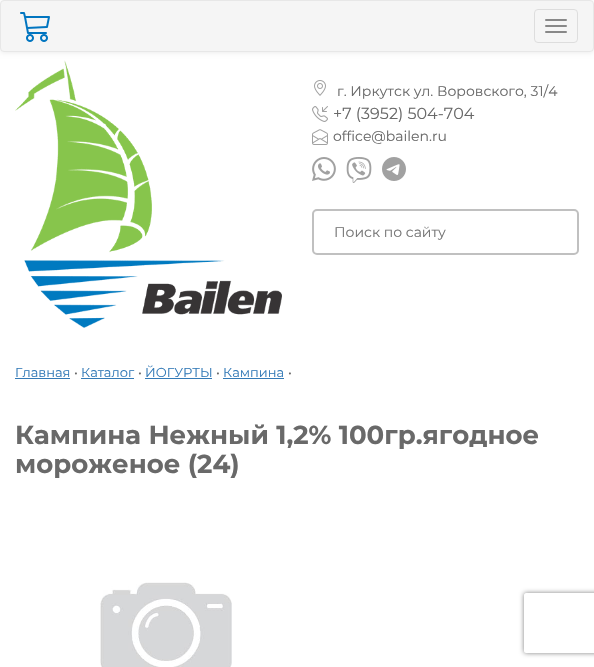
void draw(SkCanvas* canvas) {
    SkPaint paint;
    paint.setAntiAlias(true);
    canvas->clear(0xFFFFFFFF);
    canvas->drawImageRect(SkImages::DeferredFromEncodedData(SkData::MakeFromFileName("img2.png")), SkRect::MakeXYWH(15, 60, 267, 268), SkSamplingOptions());
    paint.setColor(0x12000000);
    paint.setMaskFilter(SkMaskFilter::MakeBlur(kNormal_SkBlurStyle, 2.5f));
    canvas->drawRoundRect(SkRect::MakeXYWH(0, 1, 594, 52), 4, 4, paint);
    paint.setMaskFilter(nullptr);
    paint.setColor(0xFFF5F5F5);
    canvas->drawRoundRect(SkRect::MakeXYWH(0.5f, 0.5f, 593, 51), 3.5f, 3.5f, paint);
    paint.setStyle(SkPaint::kStroke_Style);
    paint.setStrokeWidth(1);
    paint.setColor(0xFFE7E7E7);
    canvas->drawRoundRect(SkRect::MakeXYWH(0.5f, 0.5f, 593, 51), 3.5f, 3.5f, paint);
    paint.setColor(0xFFDDDDDD);
    canvas->drawRoundRect(SkRect::MakeXYWH(534.5f, 9.5f, 43, 33), 3.5f, 3.5f, paint);
    paint.setStyle(SkPaint::kFill_Style);
    paint.setColor(0xFF888888);
    canvas->drawRoundRect(SkRect::MakeXYWH(545, 19, 22, 2), 1, 1, paint);
    canvas->drawRoundRect(SkRect::MakeXYWH(545, 25, 22, 2), 1, 1, paint);
    canvas->drawRoundRect(SkRect::MakeXYWH(545, 31, 22, 2), 1, 1, paint);
    canvas->drawImageRect(SkImages::DeferredFromEncodedData(SkData::MakeFromFileName("img1.png")), SkRect::MakeXYWH(20, 12, 30, 30), SkSamplingOptions());
    canvas->drawImageRect(SkImages::DeferredFromEncodedData(SkData::MakeFromFileName("img3.png")), SkRect::MakeXYWH(314, 80, 12, 16), SkSamplingOptions());
    SkFont font1(fontMgr->matchFamilyStyle("Montserrat", SkFontStyle::Normal()), 14);
    font1.setSubpixel(true);
    paint.setColor(0xFF696969);
    canvas->drawString("г. Иркутск ул. Воровского, 31/4", 337, 96, font1, paint);
    canvas->drawImageRect(SkImages::DeferredFromEncodedData(SkData::MakeFromFileName("img4.png")), SkRect::MakeXYWH(312, 106, 16, 16), SkSamplingOptions());
    SkFont font2(fontMgr->matchFamilyStyle("Montserrat", SkFontStyle::Normal()), 16);
    font2.setSubpixel(true);
    canvas->drawString("+7 (3952) 504-704", 333, 119, font2, paint);
    canvas->drawImageRect(SkImages::DeferredFromEncodedData(SkData::MakeFromFileName("img5.png")), SkRect::MakeXYWH(312, 129, 16, 16), SkSamplingOptions());
    canvas->drawString("office@bailen.ru", 333, 141, font1, paint);
    canvas->drawImageRect(SkImages::DeferredFromEncodedData(SkData::MakeFromFileName("img6.png")), SkRect::MakeXYWH(312, 157, 24, 24), SkSamplingOptions());
    canvas->drawImageRect(SkImages::DeferredFromEncodedData(SkData::MakeFromFileName("img7.png")), SkRect::MakeXYWH(346, 157, 26, 26), SkSamplingOptions());
    canvas->drawImageRect(SkImages::DeferredFromEncodedData(SkData::MakeFromFileName("img8.png")), SkRect::MakeXYWH(382, 157, 24, 24), SkSamplingOptions());
    paint.setStyle(SkPaint::kStroke_Style);
    paint.setStrokeWidth(2);
    paint.setColor(0xFFC0C0C0);
    canvas->drawRoundRect(SkRect::MakeXYWH(313, 210, 265, 44), 4, 4, paint);
    paint.setStyle(SkPaint::kFill_Style);
    paint.setColor(0xFF757575);
    canvas->drawString("Поиск по сайту", 334, 237, font1, paint);
    SkFont font3(fontMgr->matchFamilyStyle("Montserrat", SkFontStyle::Normal()), 13);
    font3.setSubpixel(true);
    paint.setColor(0xFF337AB7);
    canvas->drawString("Главная", 15, 377, font3, paint);
    canvas->drawRect(SkRect::MakeXYWH(15, 378, 55, 1), paint);
    paint.setColor(0xFF696969);
    canvas->drawString("•", 74, 377, font3, paint);
    paint.setColor(0xFF337AB7);
    canvas->drawString("Каталог", 81, 377, font3, paint);
    canvas->drawRect(SkRect::MakeXYWH(81, 378, 53, 1), paint);
    paint.setColor(0xFF696969);
    canvas->drawString("•", 138, 377, font3, paint);
    paint.setColor(0xFF337AB7);
    canvas->drawString("ЙОГУРТЫ", 145, 377, font3, paint);
    canvas->drawRect(SkRect::MakeXYWH(145, 378, 67, 1), paint);
    paint.setColor(0xFF696969);
    canvas->drawString("•", 216, 377, font3, paint);
    paint.setColor(0xFF337AB7);
    canvas->drawString("Кампина", 223, 377, font3, paint);
    canvas->drawRect(SkRect::MakeXYWH(223, 378, 61, 1), paint);
    paint.setColor(0xFF696969);
    canvas->drawString("•", 288, 377, font3, paint);
    SkFont font4(fontMgr->matchFamilyStyle("Montserrat", SkFontStyle::Bold()), 26);
    font4.setSubpixel(true);
    canvas->drawString("Кампина Нежный 1,2% 100гр.ягодное", 15, 444, font4, paint);
    canvas->drawString("мороженое (24)", 15, 473, font4, paint);
    canvas->drawImageRect(SkImages::DeferredFromEncodedData(SkData::MakeFromFileName("img9.png")), SkRect::MakeXYWH(100, 582, 132, 85), SkSamplingOptions());
    canvas->save();
    canvas->clipPath(SkPathBuilder(SkPathFillType::kEvenOdd).moveTo(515, 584).lineTo(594, 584).lineTo(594, 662).lineTo(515, 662).close().moveTo(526, 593).lineTo(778, 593).cubicTo(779, 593, 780, 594, 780, 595).lineTo(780, 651).cubicTo(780, 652, 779, 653, 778, 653).lineTo(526, 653).cubicTo(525, 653, 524, 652, 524, 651).lineTo(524, 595).cubicTo(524, 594, 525, 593, 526, 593).close().detach(), true);
    paint.setColor(0xFF808080);
    paint.setMaskFilter(SkMaskFilter::MakeBlur(kNormal_SkBlurStyle, 2.5f));
    canvas->drawRoundRect(SkRect::MakeXYWH(524, 593, 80, 60), 2, 2, paint);
    paint.setMaskFilter(nullptr);
    canvas->restore();
}
